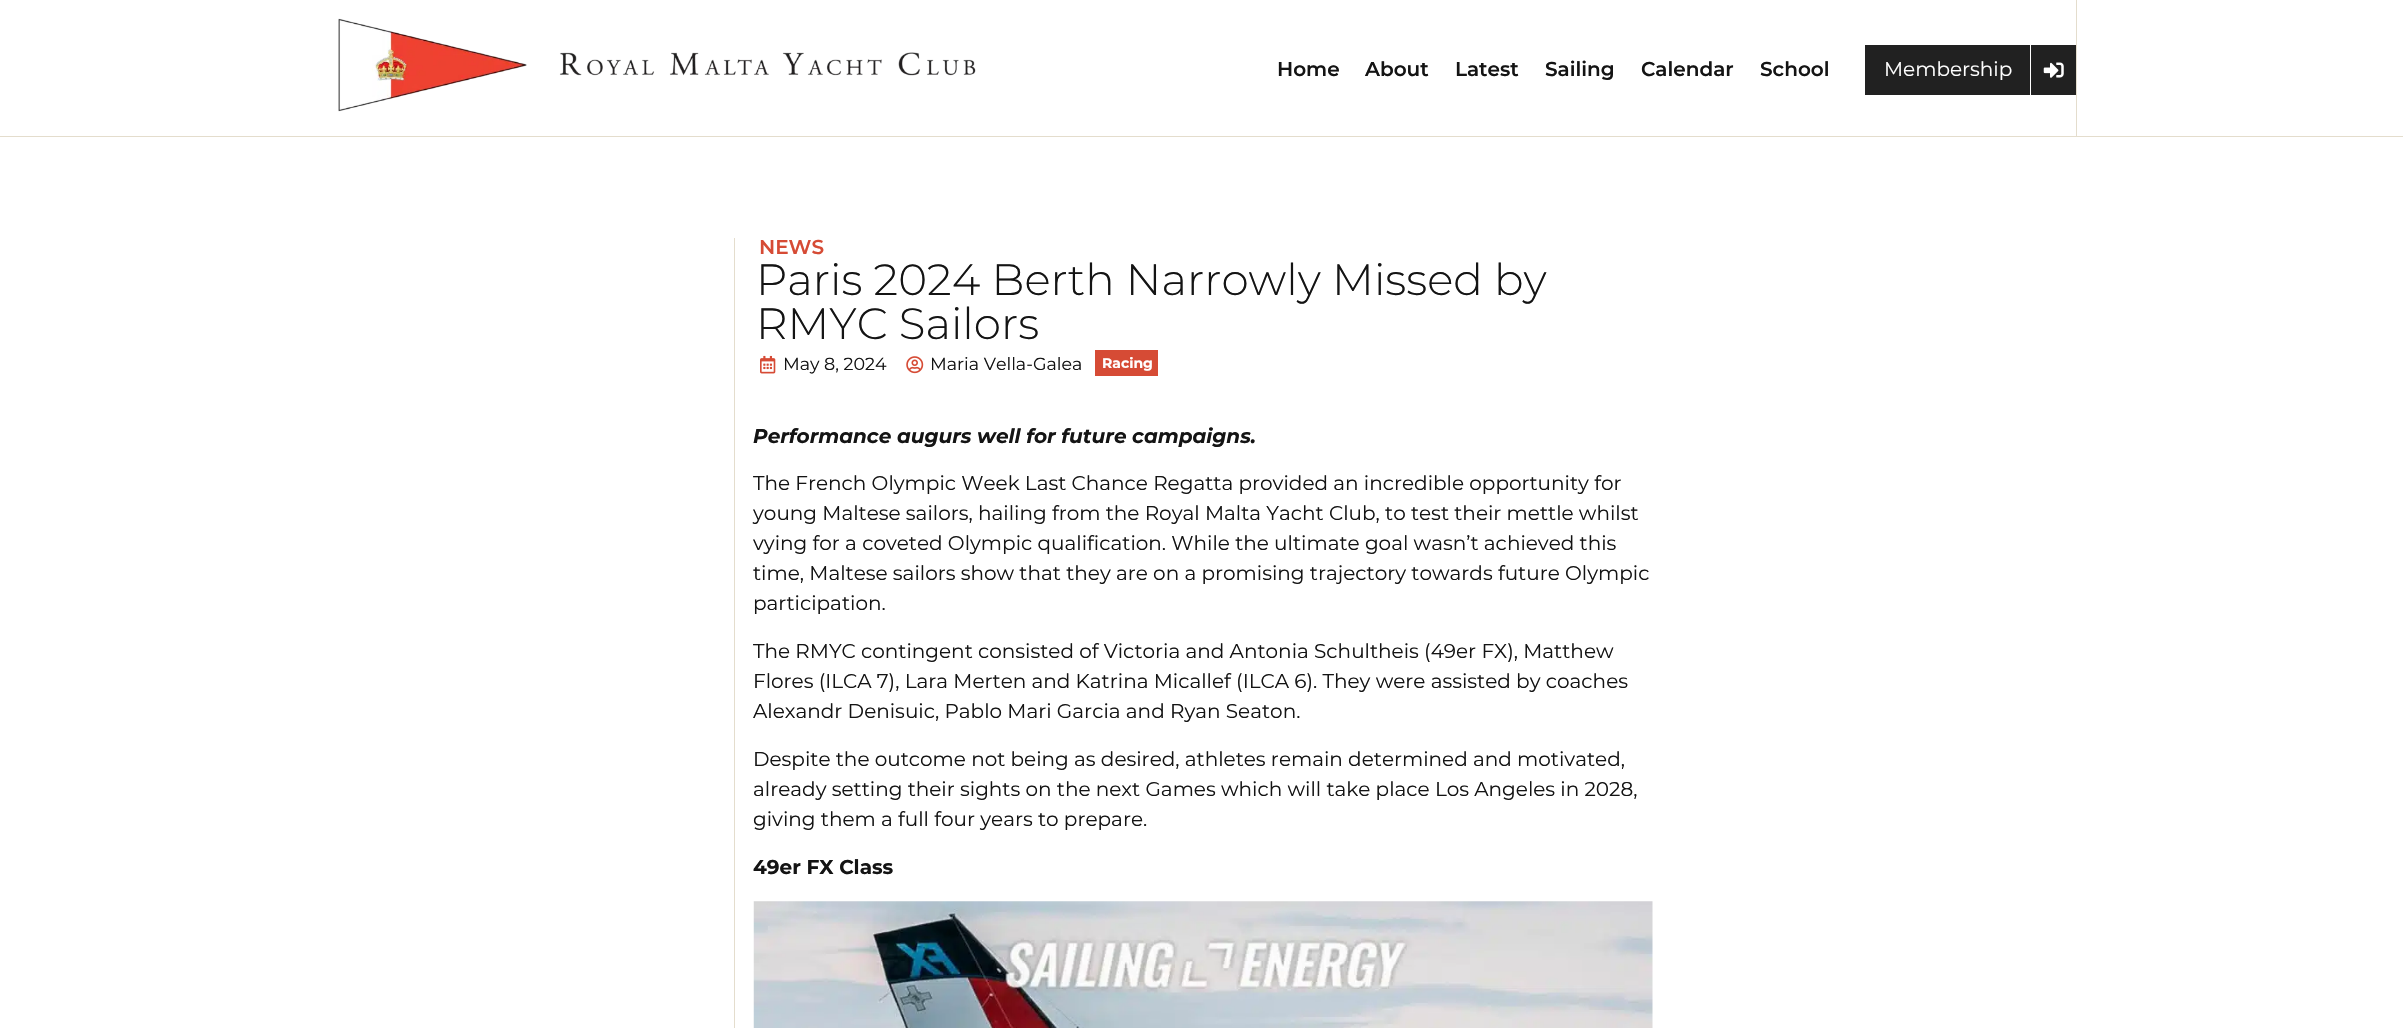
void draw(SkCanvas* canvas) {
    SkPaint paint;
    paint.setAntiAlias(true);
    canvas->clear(0xFFFFFFFF);
    canvas->drawImageRect(SkImages::DeferredFromEncodedData(SkData::MakeFromFileName("img1.png")), SkRect::MakeXYWH(338, 18, 638, 94), SkSamplingOptions());
    SkFont font1(fontMgr->matchFamilyStyle("Montserrat", SkFontStyle(600, SkFontStyle::kNormal_Width, SkFontStyle::kUpright_Slant)), 20);
    font1.setSubpixel(true);
    paint.setColor(0xFF141414);
    canvas->drawString("Home", 1277, 76, font1, paint);
    canvas->drawString("About", 1365, 76, font1, paint);
    canvas->drawString("Latest", 1455, 76, font1, paint);
    canvas->drawString("Sailing", 1545, 76, font1, paint);
    canvas->drawString("Calendar", 1641, 76, font1, paint);
    canvas->drawString("School", 1760, 76, font1, paint);
    paint.setColor(0xFF212121);
    canvas->drawRect(SkRect::MakeXYWH(1865, 45, 165, 50), paint);
    SkFont font2(fontMgr->matchFamilyStyle("Montserrat", SkFontStyle::Normal()), 20);
    font2.setSubpixel(true);
    paint.setColor(0xFFFFFFFF);
    canvas->drawString("Membership", 1884, 76, font2, paint);
    paint.setColor(0xFF212121);
    canvas->drawRect(SkRect::MakeXYWH(2031, 45, 45, 50), paint);
    canvas->drawImageRect(SkImages::DeferredFromEncodedData(SkData::MakeFromFileName("img2.png")), SkRect::MakeXYWH(2043, 62, 21, 16), SkSamplingOptions());
    paint.setColor(0xFFE4DDCD);
    canvas->drawRect(SkRect::MakeXYWH(0, 136, 2403, 1), paint);
    canvas->drawRect(SkRect::MakeXYWH(2076, 0, 1, 136), paint);
    canvas->drawRect(SkRect::MakeXYWH(734, 238, 1, 790), paint);
    paint.setColor(0xFFD64B35);
    canvas->drawString("NEWS", 759, 254, font1, paint);
    SkFont font3(fontMgr->matchFamilyStyle("Montserrat", SkFontStyle(300, SkFontStyle::kNormal_Width, SkFontStyle::kUpright_Slant)), 43.75f);
    font3.setSubpixel(true);
    paint.setColor(0xFF141414);
    canvas->drawString("Paris 2024 Berth Narrowly Missed by", 756, 295, font3, paint);
    canvas->drawString("RMYC Sailors", 756, 339, font3, paint);
    canvas->drawImageRect(SkImages::DeferredFromEncodedData(SkData::MakeFromFileName("img3.png")), SkRect::MakeXYWH(760, 355, 16, 19), SkSamplingOptions());
    SkFont font4(fontMgr->matchFamilyStyle("Montserrat", SkFontStyle::Normal()), 17.5f);
    font4.setSubpixel(true);
    canvas->drawString("May 8, 2024", 783, 370, font4, paint);
    canvas->drawImageRect(SkImages::DeferredFromEncodedData(SkData::MakeFromFileName("img4.png")), SkRect::MakeXYWH(906, 356, 18, 18), SkSamplingOptions());
    canvas->drawString("Maria Vella-Galea", 930, 370, font4, paint);
    paint.setColor(0xFFD64B35);
    canvas->drawRect(SkRect::MakeXYWH(1095, 350, 63, 26), paint);
    SkFont font5(fontMgr->matchFamilyStyle("Montserrat", SkFontStyle::Bold()), 14);
    font5.setSubpixel(true);
    paint.setColor(0xFFFFFFFF);
    canvas->drawString("Racing", 1102, 368, font5, paint);
    SkFont font6(fontMgr->matchFamilyStyle("Montserrat", SkFontStyle::BoldItalic()), 20);
    font6.setSubpixel(true);
    paint.setColor(0xFF141414);
    canvas->drawString("Performance augurs well for future campaigns.", 753, 443, font6, paint);
    canvas->drawString("The French Olympic Week Last Chance Regatta provided an incredible opportunity for", 753, 490, font2, paint);
    canvas->drawString("young Maltese sailors, hailing from the Royal Malta Yacht Club, to test their mettle whilst", 753, 520, font2, paint);
    canvas->drawString("vying for a coveted Olympic qualification. While the ultimate goal wasn’t achieved this", 753, 550, font2, paint);
    canvas->drawString("time, Maltese sailors show that they are on a promising trajectory towards future Olympic", 753, 580, font2, paint);
    canvas->drawString("participation.", 753, 610, font2, paint);
    canvas->drawString("The RMYC contingent consisted of Victoria and Antonia Schultheis (49er FX), Matthew", 753, 658, font2, paint);
    canvas->drawString("Flores (ILCA 7), Lara Merten and Katrina Micallef (ILCA 6). They were assisted by coaches", 753, 688, font2, paint);
    canvas->drawString("Alexandr Denisuic, Pablo Mari Garcia and Ryan Seaton.", 753, 718, font2, paint);
    canvas->drawString("Despite the outcome not being as desired, athletes remain determined and motivated,", 753, 766, font2, paint);
    canvas->drawString("already setting their sights on the next Games which will take place Los Angeles in 2028,", 753, 796, font2, paint);
    canvas->drawString("giving them a full four years to prepare.", 753, 826, font2, paint);
    SkFont font7(fontMgr->matchFamilyStyle("Montserrat", SkFontStyle::Bold()), 20);
    font7.setSubpixel(true);
    canvas->drawString("49er FX Class", 753, 874, font7, paint);
    canvas->drawImageRect(SkImages::DeferredFromEncodedData(SkData::MakeFromFileName("img5.png")), SkRect::MakeXYWH(753, 901, 900, 127), SkSamplingOptions());
}
